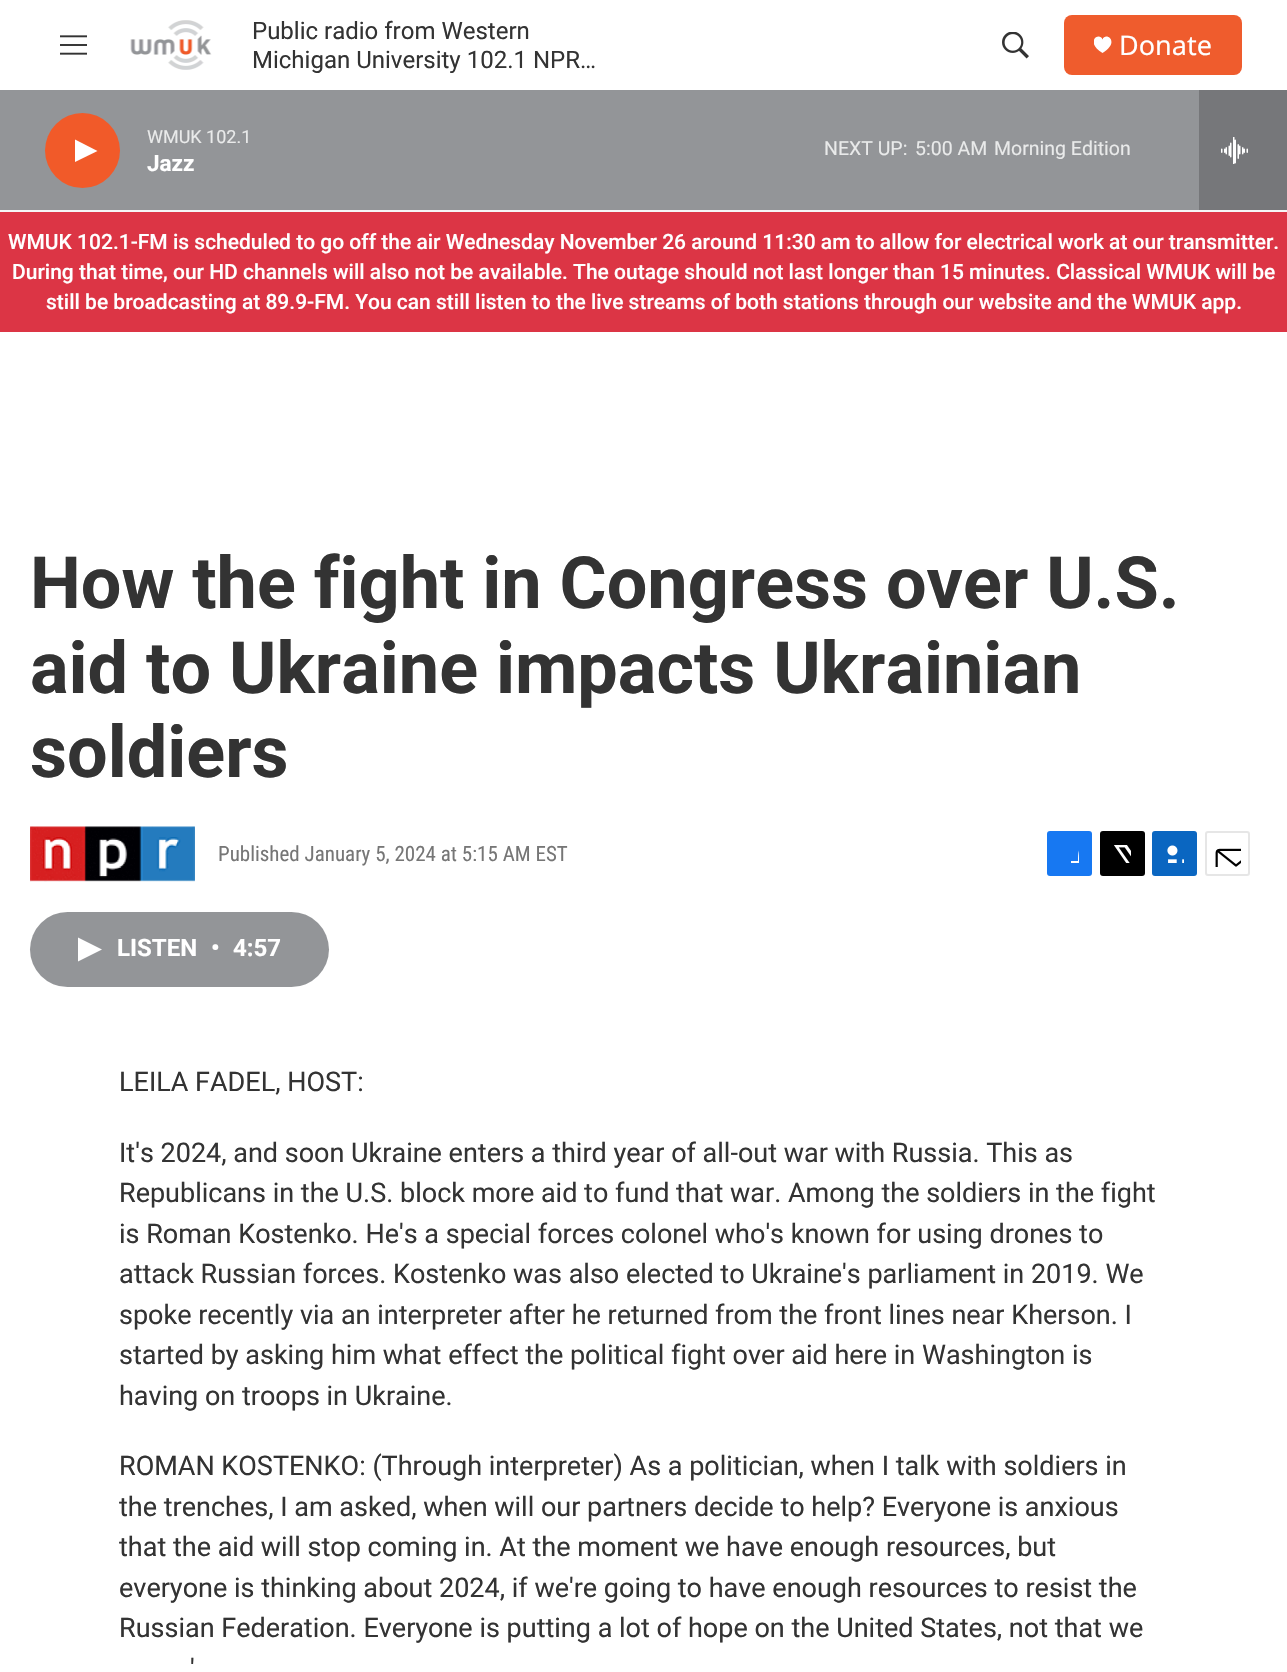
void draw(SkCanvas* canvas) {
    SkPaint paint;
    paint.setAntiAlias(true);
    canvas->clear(0xFFFFFFFF);
    paint.setColor(0xFFF5F5F5);
    canvas->drawRect(SkRect::MakeXYWH(0, 210, 1287, 2), paint);
    canvas->drawImageRect(SkImages::DeferredFromEncodedData(SkData::MakeFromFileName("img1.png")), SkRect::MakeXYWH(60, 35, 27, 20), SkSamplingOptions());
    canvas->drawImageRect(SkImages::DeferredFromEncodedData(SkData::MakeFromFileName("img2.png")), SkRect::MakeXYWH(130, 20, 82, 50), SkSamplingOptions());
    SkFont font1(fontMgr->matchFamilyStyle("Roboto", SkFontStyle::Normal()), 24);
    font1.setSubpixel(true);
    paint.setColor(0xFF333333);
    canvas->drawString("Public radio from Western", 252, 39, font1, paint);
    canvas->drawString("Michigan University 102.1 NPR…", 252, 68, font1, paint);
    canvas->drawImageRect(SkImages::DeferredFromEncodedData(SkData::MakeFromFileName("img3.png")), SkRect::MakeXYWH(1002, 32, 27, 27), SkSamplingOptions());
    paint.setColor(0xFFEF5C2D);
    canvas->drawRoundRect(SkRect::MakeXYWH(1064, 15, 178, 60), 8, 8, paint);
    canvas->save();
    canvas->clipRect(SkRect::MakeXYWH(1094, 36, 18, 18));
    paint.setColor(0xFFFFFFFF);
    canvas->drawPath(SkPathBuilder().moveTo(1102.5f, 39.5f).cubicTo(1099.5f, 31.5f, 1084, 41.5f, 1102.5f, 53).cubicTo(1121, 41.5f, 1105.5f, 31.5f, 1102.5f, 39.5f).close().detach(), paint);
    canvas->restore();
    SkFont font2(fontMgr->matchFamilyStyle("Noto Sans", SkFontStyle::Normal()), 27);
    font2.setSubpixel(true);
    canvas->drawString("Donate", 1119, 55, font2, paint);
    paint.setColor(0xFF939598);
    canvas->drawRect(SkRect::MakeXYWH(0, 90, 1199, 120), paint);
    paint.setColor(0xFFF15A29);
    canvas->drawCircle(82.5f, 150.5f, 37.5f, paint);
    paint.setColor(0xFFFFFFFF);
    canvas->drawPath(SkPathBuilder().moveTo(75, 139.5f).lineTo(97.5f, 151).lineTo(75, 162).close().detach(), paint);
    SkFont font3(fontMgr->matchFamilyStyle("Roboto", SkFontStyle::Normal()), 18);
    font3.setSubpixel(true);
    paint.setColor(0xFFE9EAEA);
    canvas->drawString("WMUK 102.1", 147, 143, font3, paint);
    SkFont font4(fontMgr->matchFamilyStyle("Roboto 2", SkFontStyle::Bold()), 22.5f);
    font4.setSubpixel(true);
    paint.setColor(0xFFFFFFFF);
    canvas->drawString("Jazz", 147, 171, font4, paint);
    SkFont font5(fontMgr->matchFamilyStyle("Roboto", SkFontStyle::Normal()), 19.5f);
    font5.setSubpixel(true);
    paint.setColor(0xFFE9EAEA);
    canvas->drawString("NEXT UP:", 824, 155, font5, paint);
    canvas->drawString("5:00 AM", 915, 155, font5, paint);
    canvas->drawString("Morning Edition", 994, 155, font5, paint);
    paint.setColor(0xFF76777A);
    canvas->drawRect(SkRect::MakeXYWH(1199, 90, 88, 120), paint);
    canvas->drawImageRect(SkImages::DeferredFromEncodedData(SkData::MakeFromFileName("img4.png")), SkRect::MakeXYWH(1221, 137, 27, 27), SkSamplingOptions());
    paint.setColor(0xFFDC3545);
    canvas->drawRect(SkRect::MakeXYWH(0, 212, 1287, 120), paint);
    SkFont font6(fontMgr->matchFamilyStyle("Roboto", SkFontStyle(500, SkFontStyle::kNormal_Width, SkFontStyle::kUpright_Slant)), 21);
    font6.setSubpixel(true);
    paint.setColor(0xFFFFFFFF);
    canvas->drawString("WMUK 102.1-FM is scheduled to go off the air Wednesday November 26 around 11:30 am to allow for electrical work at our transmitter.", 8, 249, font6, paint);
    canvas->drawString("During that time, our HD channels will also not be available. The outage should not last longer than 15 minutes. Classical WMUK will be", 12, 279, font6, paint);
    canvas->drawString("still be broadcasting at 89.9-FM. You can still listen to the live streams of both stations through our website and the WMUK app.", 46, 309, font6, paint);
    SkFont font7(fontMgr->matchFamilyStyle("Roboto", SkFontStyle::Bold()), 72);
    font7.setSubpixel(true);
    paint.setColor(0xFF333333);
    canvas->drawString("How the fight in Congress over U.S.", 30, 608, font7, paint);
    canvas->drawString("aid to Ukraine impacts Ukrainian", 30, 693, font7, paint);
    canvas->drawString("soldiers", 30, 777, font7, paint);
    canvas->drawImageRect(SkImages::DeferredFromEncodedData(SkData::MakeFromFileName("img5.png")), SkRect::MakeXYWH(30, 826, 165, 56), SkSamplingOptions());
    SkFont font8(fontMgr->matchFamilyStyle("Roboto Condensed", SkFontStyle::Normal()), 21);
    font8.setSubpixel(true);
    paint.setColor(0xFF767676);
    canvas->drawString("Published January 5, 2024 at 5:15 AM EST", 218, 861, font8, paint);
    paint.setColor(0xFF1778F2);
    canvas->drawRoundRect(SkRect::MakeXYWH(1047, 831, 45, 45), 3, 3, paint);
    canvas->save();
    canvas->clipRect(SkRect::MakeXYWH(1061, 845, 18, 18));
    paint.setColor(0xFFFFFFFF);
    canvas->drawPath(SkPathBuilder().moveTo(1085, 876).lineTo(1078, 876).lineTo(1078, 869).lineTo(1071, 869).lineTo(1071, 861).lineTo(1078, 861).cubicTo(1078, 849.5f, 1079, 843.5f, 1092, 845).lineTo(1092, 852).cubicTo(1084, 852, 1085, 854.5f, 1085, 861).lineTo(1092, 861).lineTo(1091, 869).lineTo(1085, 869).close().detach(), paint);
    canvas->restore();
    paint.setColor(0xFF000000);
    canvas->drawRoundRect(SkRect::MakeXYWH(1100, 831, 45, 45), 3, 3, paint);
    canvas->drawImageRect(SkImages::DeferredFromEncodedData(SkData::MakeFromFileName("img6.png")), SkRect::MakeXYWH(1114, 845, 17, 18), SkSamplingOptions());
    paint.setColor(0xFF0A66C1);
    canvas->drawRoundRect(SkRect::MakeXYWH(1152, 831, 45, 45), 3, 3, paint);
    canvas->drawImageRect(SkImages::DeferredFromEncodedData(SkData::MakeFromFileName("img7.png")), SkRect::MakeXYWH(1167, 845, 17, 18), SkSamplingOptions());
    paint.setStyle(SkPaint::kStroke_Style);
    paint.setStrokeWidth(2);
    paint.setColor(0xFFE6E6E6);
    canvas->drawRoundRect(SkRect::MakeXYWH(1206, 832, 43, 43), 2, 2, paint);
    canvas->drawImageRect(SkImages::DeferredFromEncodedData(SkData::MakeFromFileName("img8.png")), SkRect::MakeXYWH(1215, 848, 26, 19), SkSamplingOptions());
    paint.setStyle(SkPaint::kFill_Style);
    paint.setColor(0xFF939598);
    canvas->drawRoundRect(SkRect::MakeXYWH(30, 912, 299, 75), 37.5f, 37.5f, paint);
    paint.setColor(0xFFFFFFFF);
    canvas->drawPath(SkPathBuilder().moveTo(78, 937.5f).lineTo(102, 949.5f).lineTo(78, 961.5f).close().detach(), paint);
    SkFont font9(fontMgr->matchFamilyStyle("Roboto 2", SkFontStyle::Bold()), 24);
    font9.setSubpixel(true);
    canvas->drawString("LISTEN", 117, 956, font9, paint);
    canvas->drawString("•", 211, 956, font9, paint);
    canvas->drawString("4:57", 233, 956, font9, paint);
    SkFont font10(fontMgr->matchFamilyStyle("Roboto", SkFontStyle::Normal()), 27);
    font10.setSubpixel(true);
    paint.setColor(0xFF333333);
    canvas->drawString("LEILA FADEL, HOST:", 119, 1091, font10, paint);
    canvas->drawString("It's 2024, and soon Ukraine enters a third year of all-out war with Russia. This as", 119, 1162, font10, paint);
    canvas->drawString("Republicans in the U.S. block more aid to fund that war. Among the soldiers in the fight", 119, 1202, font10, paint);
    canvas->drawString("is Roman Kostenko. He's a special forces colonel who's known for using drones to", 119, 1243, font10, paint);
    canvas->drawString("attack Russian forces. Kostenko was also elected to Ukraine's parliament in 2019. We", 119, 1283, font10, paint);
    canvas->drawString("spoke recently via an interpreter after he returned from the front lines near Kherson. I", 119, 1324, font10, paint);
    canvas->drawString("started by asking him what effect the political fight over aid here in Washington is", 119, 1364, font10, paint);
    canvas->drawString("having on troops in Ukraine.", 119, 1405, font10, paint);
    canvas->drawString("ROMAN KOSTENKO: (Through interpreter) As a politician, when I talk with soldiers in", 119, 1475, font10, paint);
    canvas->drawString("the trenches, I am asked, when will our partners decide to help? Everyone is anxious", 119, 1516, font10, paint);
    canvas->drawString("that the aid will stop coming in. At the moment we have enough resources, but", 119, 1556, font10, paint);
    canvas->drawString("everyone is thinking about 2024, if we're going to have enough resources to resist the", 119, 1597, font10, paint);
    canvas->drawString("Russian Federation. Everyone is putting a lot of hope on the United States, not that we", 119, 1637, font10, paint);
    canvas->drawString("'", 190, 1678, font10, paint);
}
